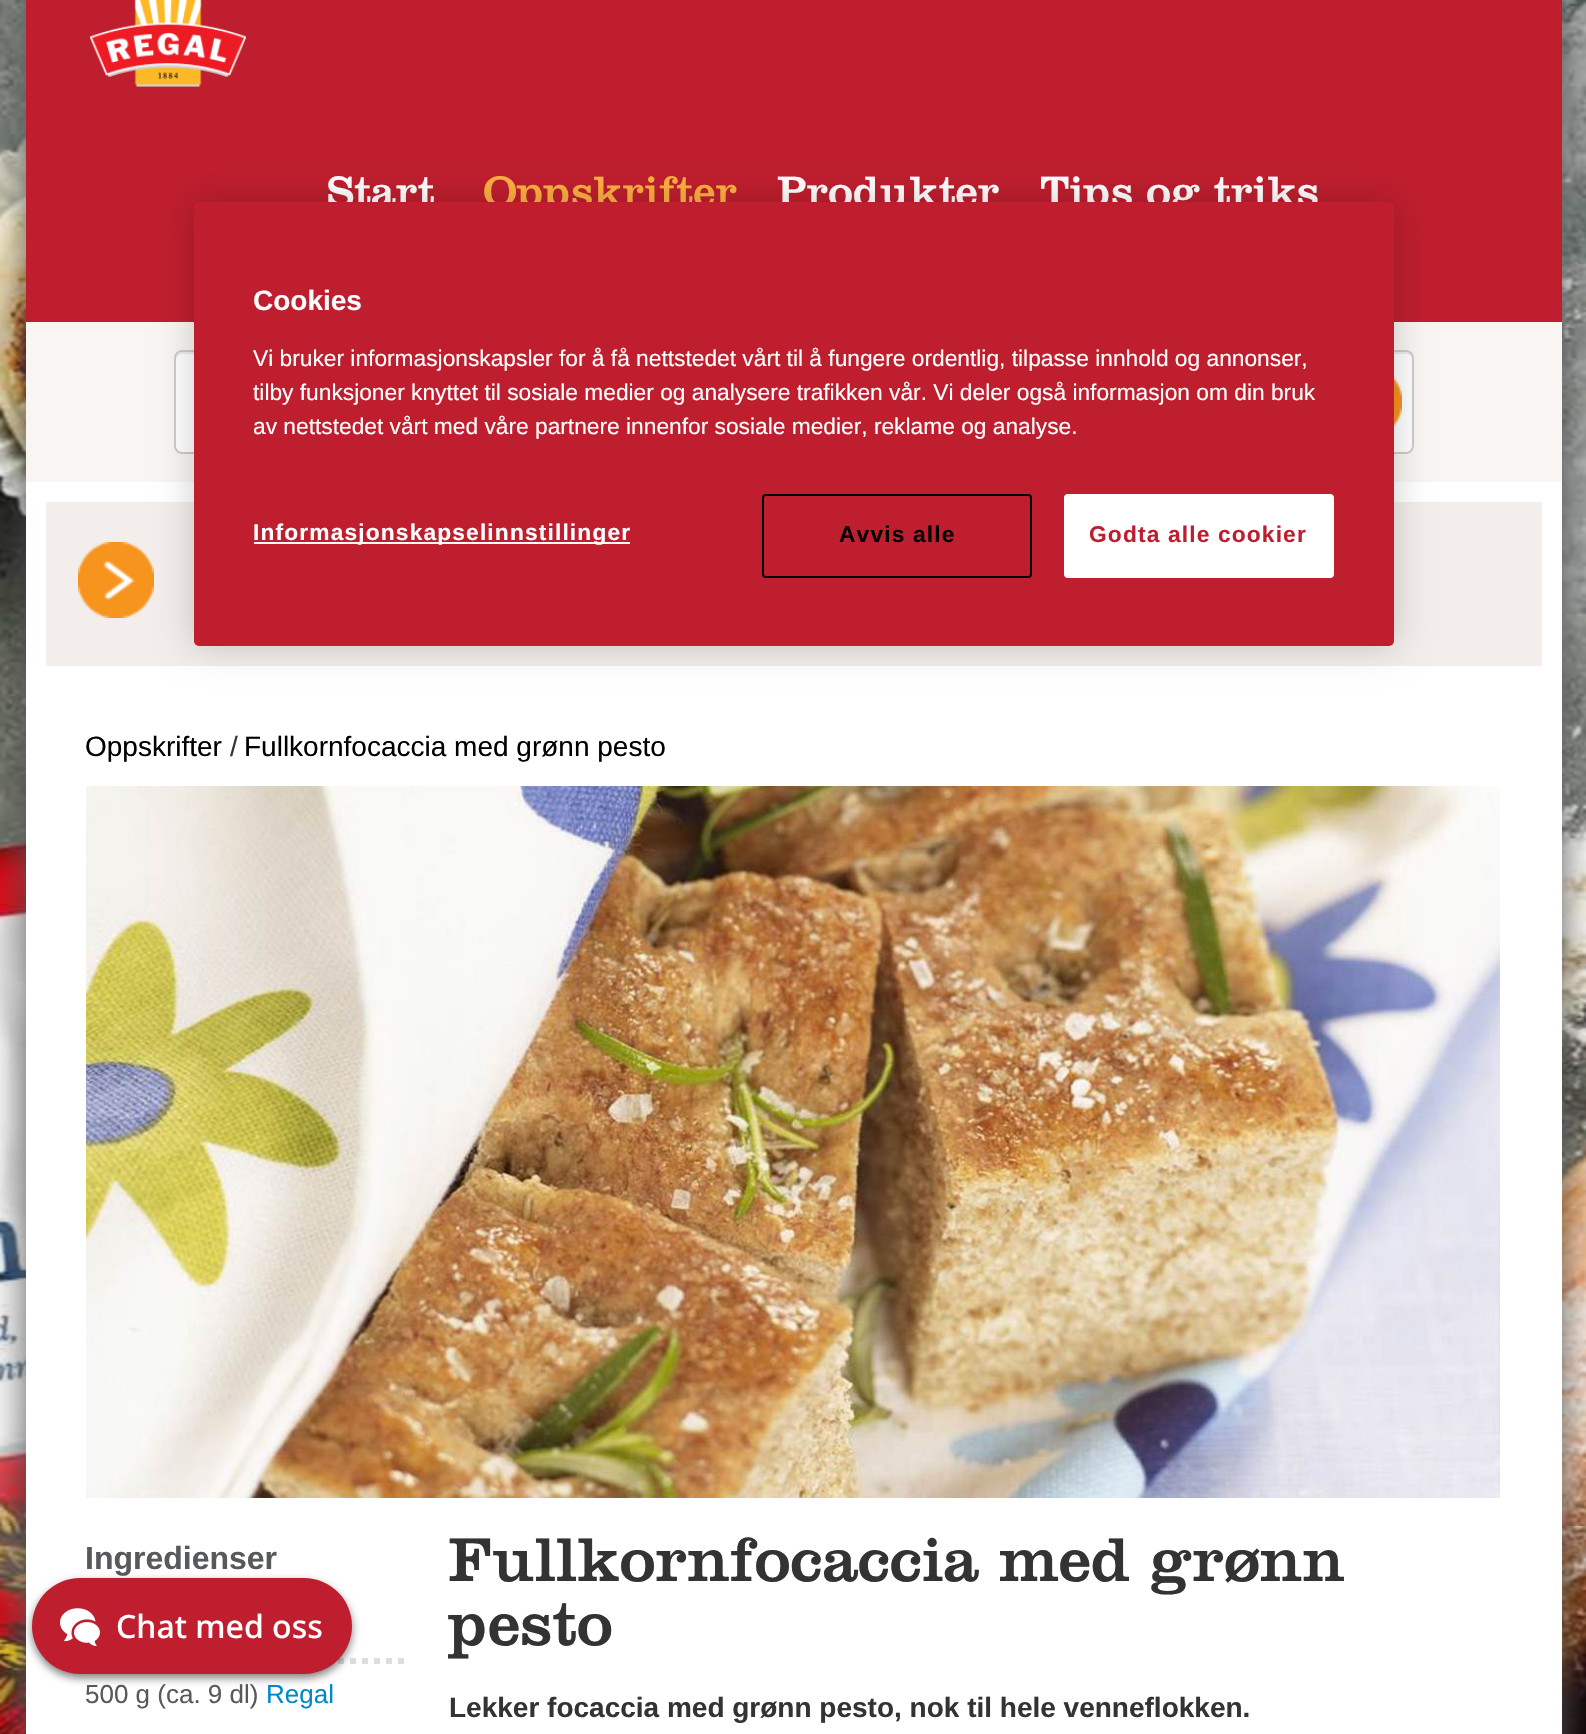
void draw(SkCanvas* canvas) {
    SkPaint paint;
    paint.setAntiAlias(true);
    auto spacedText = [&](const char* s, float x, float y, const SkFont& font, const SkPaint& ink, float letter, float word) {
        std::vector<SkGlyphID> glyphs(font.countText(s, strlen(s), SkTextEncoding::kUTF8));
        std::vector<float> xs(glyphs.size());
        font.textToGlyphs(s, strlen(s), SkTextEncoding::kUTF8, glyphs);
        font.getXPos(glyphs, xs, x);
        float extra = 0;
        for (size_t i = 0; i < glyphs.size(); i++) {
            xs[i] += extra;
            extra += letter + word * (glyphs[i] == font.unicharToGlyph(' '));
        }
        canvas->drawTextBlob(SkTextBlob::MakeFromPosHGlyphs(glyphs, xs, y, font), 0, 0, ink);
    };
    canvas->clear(0xFFFFFFFF);
    canvas->drawImageRect(SkImages::DeferredFromEncodedData(SkData::MakeFromFileName("img1.png")), SkRect::MakeXYWH(0, 0, 1586, 1734), SkSamplingOptions());
    paint.setColor(0xFF555555);
    paint.setMaskFilter(SkMaskFilter::MakeBlur(kNormal_SkBlurStyle, 20));
    canvas->drawRect(SkRect::MakeXYWH(26, 10, 1536, 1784), paint);
    paint.setMaskFilter(nullptr);
    paint.setColor(0xFFBF1E2E);
    canvas->drawRect(SkRect::MakeXYWH(26, 0, 1536, 322), paint);
    canvas->drawImageRect(SkImages::DeferredFromEncodedData(SkData::MakeFromFileName("img2.png")), SkRect::MakeXYWH(90, 0, 156, 87), SkSamplingOptions());
    paint.setColor(0xFFF9F5F2);
    canvas->drawRect(SkRect::MakeXYWH(26, 322, 1536, 160), paint);
    paint.setColor(0xFFFFFFFF);
    canvas->drawRoundRect(SkRect::MakeXYWH(174, 350, 1240, 104), 8, 8, paint);
    paint.setColor(0xFFECECEC);
    canvas->drawPath(SkPathBuilder().moveTo(182, 354).lineTo(1406, 354).cubicTo(1409, 354, 1412, 357, 1412, 360).lineTo(1412, 358).cubicTo(1412, 355, 1409, 352, 1406, 352).lineTo(182, 352).cubicTo(179, 352, 176, 355, 176, 358).lineTo(176, 360).cubicTo(176, 357, 179, 354, 182, 354).close().detach(), paint);
    paint.setStyle(SkPaint::kStroke_Style);
    paint.setStrokeWidth(2);
    paint.setColor(0xFFCCCCCC);
    canvas->drawRoundRect(SkRect::MakeXYWH(175, 351, 1238, 102), 7, 7, paint);
    canvas->drawImageRect(SkImages::DeferredFromEncodedData(SkData::MakeFromFileName("img3.png")), SkRect::MakeXYWH(1394, 376, 8, 52), SkSamplingOptions());
    paint.setStyle(SkPaint::kFill_Style);
    paint.setColor(0xFFFFFFFF);
    canvas->drawRect(SkRect::MakeXYWH(26, 482, 1536, 1252), paint);
    paint.setColor(0xFFF3EEEB);
    canvas->drawRect(SkRect::MakeXYWH(46, 502, 1496, 164), paint);
    canvas->drawImageRect(SkImages::DeferredFromEncodedData(SkData::MakeFromFileName("img4.png")), SkRect::MakeXYWH(78, 542, 76, 76), SkSamplingOptions());
    SkFont font1(fontMgr->matchFamilyStyle("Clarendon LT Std", SkFontStyle::Normal()), 44);
    font1.setSubpixel(true);
    paint.setColor(0xFFFFFFFF);
    canvas->drawString("Start", 327, 206, font1, paint);
    paint.setColor(0xFFFCB040);
    canvas->drawString("Oppskrifter", 483, 206, font1, paint);
    paint.setColor(0xFFFFFFFF);
    canvas->drawString("Produkter", 777, 206, font1, paint);
    canvas->drawString("Tips og triks", 1040, 206, font1, paint);
    SkFont font2(fontMgr->matchFamilyStyle("Liberation Sans", SkFontStyle::Normal()), 28);
    font2.setSubpixel(true);
    paint.setColor(0xFF000000);
    canvas->drawString("Oppskrifter", 85, 756, font2, paint);
    paint.setColor(0xFF333333);
    canvas->drawString("/", 230, 756, font2, paint);
    paint.setColor(0xFF000000);
    canvas->drawString("Fullkornfocaccia med grønn pesto", 244, 756, font2, paint);
    canvas->drawImageRect(SkImages::DeferredFromEncodedData(SkData::MakeFromFileName("img5.png")), SkRect::MakeXYWH(86, 786, 1414, 712), SkSamplingOptions());
    SkFont font3(fontMgr->matchFamilyStyle("Liberation Sans", SkFontStyle::Bold()), 32);
    font3.setSubpixel(true);
    paint.setColor(0xFF58595B);
    canvas->drawString("Ingredienser", 85, 1569, font3, paint);
    paint.setStyle(SkPaint::kStroke_Style);
    paint.setStrokeWidth(6);
    paint.setColor(0xFFDDDDDD);
    paint.setPathEffect(SkDashPathEffect::Make({{6, 6}}, 0));
    canvas->drawPath(SkPathBuilder().moveTo(86, 1661).lineTo(410, 1661).detach(), paint);
    paint.setPathEffect(nullptr);
    SkFont font4(fontMgr->matchFamilyStyle("Liberation Sans", SkFontStyle::Normal()), 26);
    font4.setSubpixel(true);
    paint.setStyle(SkPaint::kFill_Style);
    paint.setColor(0xFF58595B);
    canvas->drawString("500 g (ca. 9 dl)", 85, 1703, font4, paint);
    paint.setColor(0xFF0088CC);
    canvas->drawString("Regal", 266, 1703, font4, paint);
    SkFont font5(fontMgr->matchFamilyStyle("Clarendon LT Std", SkFontStyle::Normal()), 64);
    font5.setSubpixel(true);
    paint.setColor(0xFF333333);
    canvas->drawString("Fullkornfocaccia med grønn", 449, 1581, font5, paint);
    canvas->drawString("pesto", 449, 1645, font5, paint);
    SkFont font6(fontMgr->matchFamilyStyle("Liberation Sans", SkFontStyle::Bold()), 28);
    font6.setSubpixel(true);
    canvas->drawString("Lekker focaccia med grønn pesto, nok til hele venneflokken.", 449, 1717, font6, paint);
    paint.setColor(0x33000000);
    paint.setMaskFilter(SkMaskFilter::MakeBlur(kNormal_SkBlurStyle, 18));
    canvas->drawRoundRect(SkRect::MakeXYWH(194, 202, 1200, 444), 5, 5, paint);
    paint.setMaskFilter(nullptr);
    paint.setColor(0xFFBF1E2E);
    canvas->drawRoundRect(SkRect::MakeXYWH(194, 202, 1200, 444), 5, 5, paint);
    paint.setColor(0xFFFFFFFF);
    canvas->drawString("Cookies", 253, 310, font6, paint);
    SkFont font7(fontMgr->matchFamilyStyle("Liberation Sans", SkFontStyle::Normal()), 22.75f);
    font7.setSubpixel(true);
    canvas->drawString("Vi bruker informasjonskapsler for å få nettstedet vårt til å fungere ordentlig, tilpasse innhold og annonser,", 253, 366, font7, paint);
    canvas->drawString("tilby funksjoner knyttet til sosiale medier og analysere trafikken vår. Vi deler også informasjon om din bruk", 253, 400, font7, paint);
    canvas->drawString("av nettstedet vårt med våre partnere innenfor sosiale medier, reklame og analyse.", 253, 434, font7, paint);
    canvas->drawRect(SkRect::MakeXYWH(254, 542, 376, 2), paint);
    SkFont font8(fontMgr->matchFamilyStyle("Liberation Sans", SkFontStyle::Bold()), 22.75f);
    font8.setSubpixel(true);
    spacedText("Informasjonskapselinnstillinger", 253, 540, font8, paint, 1.15f, 0);
    paint.setStyle(SkPaint::kStroke_Style);
    paint.setStrokeWidth(2);
    paint.setColor(0xFF000000);
    canvas->drawRoundRect(SkRect::MakeXYWH(763, 495, 268, 82), 3, 3, paint);
    paint.setStyle(SkPaint::kFill_Style);
    spacedText("Avvis alle", 839, 542, font8, paint, 1.15f, 0);
    paint.setColor(0xFFFFFFFF);
    canvas->drawRoundRect(SkRect::MakeXYWH(1065, 495, 268, 82), 3, 3, paint);
    paint.setStyle(SkPaint::kStroke_Style);
    canvas->drawRoundRect(SkRect::MakeXYWH(1065, 495, 268, 82), 3, 3, paint);
    paint.setStyle(SkPaint::kFill_Style);
    paint.setColor(0xFFBF1E2E);
    spacedText("Godta alle cookier", 1089, 542, font8, paint, 1.15f, 0);
    paint.setColor(0x80000000);
    paint.setMaskFilter(SkMaskFilter::MakeBlur(kNormal_SkBlurStyle, 4));
    canvas->drawRoundRect(SkRect::MakeXYWH(32, 1582, 320, 96), 48, 48, paint);
    paint.setMaskFilter(nullptr);
    paint.setColor(0xFFBF1E2E);
    canvas->drawRoundRect(SkRect::MakeXYWH(32, 1578, 320, 96), 48, 48, paint);
    canvas->drawImageRect(SkImages::DeferredFromEncodedData(SkData::MakeFromFileName("img6.png")), SkRect::MakeXYWH(60, 1608, 40, 38), SkSamplingOptions());
    SkFont font9(fontMgr->matchFamilyStyle("Noto Sans", SkFontStyle(500, SkFontStyle::kNormal_Width, SkFontStyle::kUpright_Slant)), 32);
    font9.setSubpixel(true);
    paint.setColor(0xFFFFFFFF);
    canvas->drawString("Chat med oss", 116, 1638, font9, paint);
}
